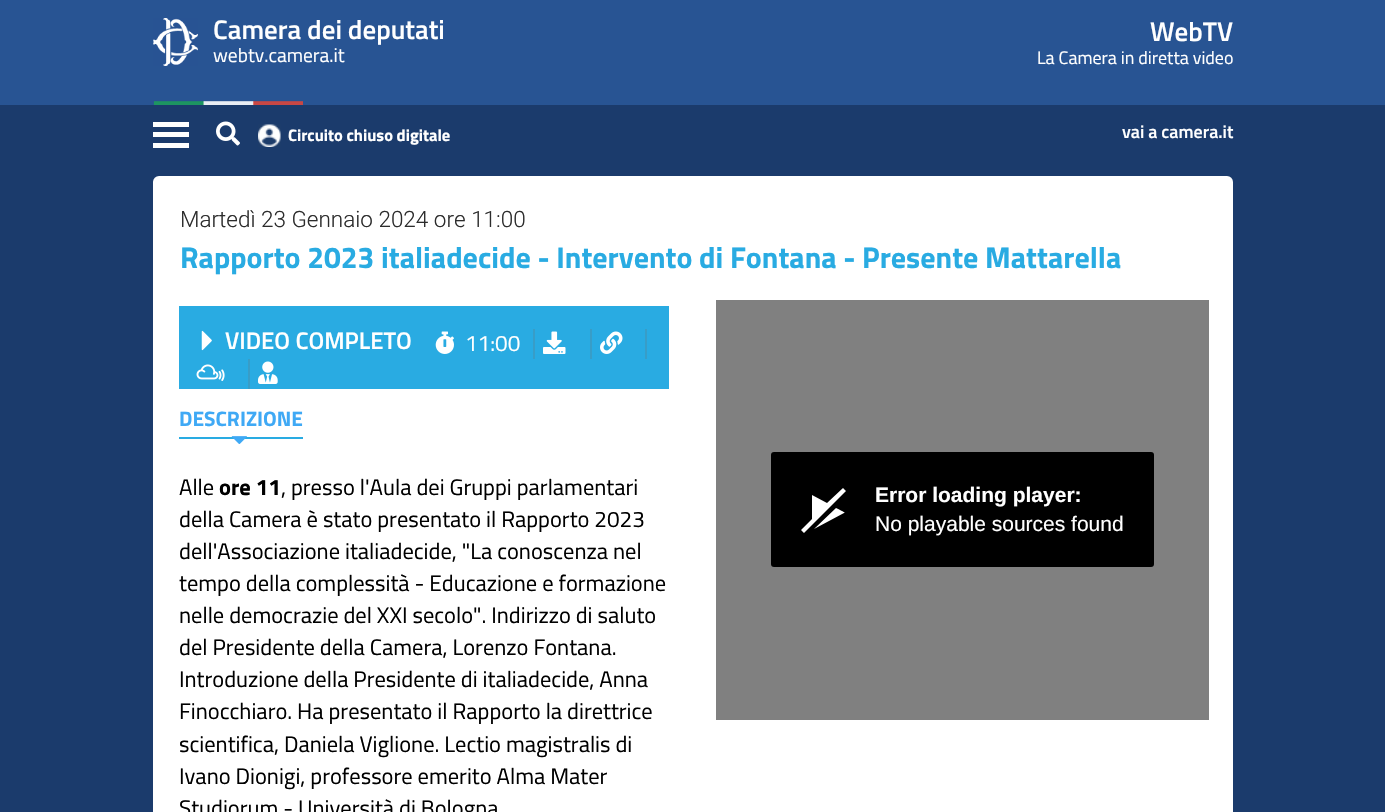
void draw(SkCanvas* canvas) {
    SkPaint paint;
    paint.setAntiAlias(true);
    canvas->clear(0xFF1B3B6C);
    paint.setColor(0xFF285493);
    canvas->drawRect(SkRect::MakeXYWH(0, 0, 1385, 105), paint);
    canvas->drawImageRect(SkImages::DeferredFromEncodedData(SkData::MakeFromFileName("img1.png")), SkRect::MakeXYWH(153, 18, 150, 87), SkSamplingOptions());
    SkFont font1(fontMgr->matchFamilyStyle("Titillium Web", SkFontStyle(600, SkFontStyle::kNormal_Width, SkFontStyle::kUpright_Slant)), 27);
    font1.setSubpixel(true);
    paint.setColor(0xFFFFFFFF);
    canvas->drawString("Camera dei deputati", 213, 39, font1, paint);
    SkFont font2(fontMgr->matchFamilyStyle("Titillium Web", SkFontStyle::Normal()), 19.5f);
    font2.setSubpixel(true);
    canvas->drawString("webtv.camera.it", 213, 62, font2, paint);
    canvas->drawString("WebTV", 1150, 41, font1, paint);
    SkFont font3(fontMgr->matchFamilyStyle("Titillium Web", SkFontStyle::Normal()), 18);
    font3.setSubpixel(true);
    canvas->drawString("La Camera in diretta video", 1037, 64, font3, paint);
    canvas->drawRect(SkRect::MakeXYWH(153, 122, 36, 5), paint);
    canvas->drawRect(SkRect::MakeXYWH(153, 132, 36, 5), paint);
    canvas->drawRect(SkRect::MakeXYWH(153, 143, 36, 5), paint);
    canvas->drawImageRect(SkImages::DeferredFromEncodedData(SkData::MakeFromFileName("img2.png")), SkRect::MakeXYWH(216, 121, 24, 25), SkSamplingOptions());
    canvas->drawImageRect(SkImages::DeferredFromEncodedData(SkData::MakeFromFileName("img3.png")), SkRect::MakeXYWH(258, 124, 23, 23), SkSamplingOptions());
    SkFont font4(fontMgr->matchFamilyStyle("Titillium Web", SkFontStyle::Bold()), 16.5f);
    font4.setSubpixel(true);
    canvas->drawString("Circuito chiuso digitale", 288, 141, font4, paint);
    SkFont font5(fontMgr->matchFamilyStyle("Titillium Web", SkFontStyle(600, SkFontStyle::kNormal_Width, SkFontStyle::kUpright_Slant)), 18);
    font5.setSubpixel(true);
    canvas->drawString("vai a camera.it", 1122, 138, font5, paint);
    canvas->drawRoundRect(SkRect::MakeXYWH(154, 177, 1078, 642), 5, 5, paint);
    paint.setStyle(SkPaint::kStroke_Style);
    paint.setStrokeWidth(2);
    canvas->drawRoundRect(SkRect::MakeXYWH(154, 177, 1078, 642), 5, 5, paint);
    SkFont font6(fontMgr->matchFamilyStyle("Roboto", SkFontStyle(300, SkFontStyle::kNormal_Width, SkFontStyle::kUpright_Slant)), 22.5f);
    font6.setSubpixel(true);
    paint.setStyle(SkPaint::kFill_Style);
    paint.setColor(0xFF2C2C2C);
    canvas->drawString("Martedì 23 Gennaio 2024 ore 11:00", 180, 227, font6, paint);
    SkFont font7(fontMgr->matchFamilyStyle("Titillium Web", SkFontStyle::Bold()), 30);
    font7.setSubpixel(true);
    paint.setColor(0xFF29ABE2);
    canvas->drawString("Rapporto 2023 italiadecide - Intervento di Fontana - Presente Mattarella", 180, 268, font7, paint);
    canvas->drawRect(SkRect::MakeXYWH(179, 306, 490, 83), paint);
    canvas->drawImageRect(SkImages::DeferredFromEncodedData(SkData::MakeFromFileName("img4.png")), SkRect::MakeXYWH(201, 330, 11, 21), SkSamplingOptions());
    SkFont font8(fontMgr->matchFamilyStyle("Titillium Web", SkFontStyle(600, SkFontStyle::kNormal_Width, SkFontStyle::kUpright_Slant)), 24);
    font8.setSubpixel(true);
    paint.setColor(0xFFFFFFFF);
    canvas->drawString("VIDEO COMPLETO", 225, 349, font8, paint);
    canvas->drawImageRect(SkImages::DeferredFromEncodedData(SkData::MakeFromFileName("img5.png")), SkRect::MakeXYWH(435, 331, 19, 23), SkSamplingOptions());
    SkFont font9(fontMgr->matchFamilyStyle("Titillium Web", SkFontStyle::Normal()), 22.5f);
    font9.setSubpixel(true);
    canvas->drawString("11:00", 465, 351, font9, paint);
    paint.setColor(0xFF389DC7);
    canvas->drawRect(SkRect::MakeXYWH(533, 329, 2, 30), paint);
    canvas->drawImageRect(SkImages::DeferredFromEncodedData(SkData::MakeFromFileName("img6.png")), SkRect::MakeXYWH(543, 331, 23, 23), SkSamplingOptions());
    canvas->drawRect(SkRect::MakeXYWH(590, 329, 2, 30), paint);
    canvas->drawImageRect(SkImages::DeferredFromEncodedData(SkData::MakeFromFileName("img7.png")), SkRect::MakeXYWH(600, 331, 23, 23), SkSamplingOptions());
    canvas->drawRect(SkRect::MakeXYWH(645, 329, 2, 30), paint);
    canvas->drawImageRect(SkImages::DeferredFromEncodedData(SkData::MakeFromFileName("img8.png")), SkRect::MakeXYWH(196, 364, 29, 17), SkSamplingOptions());
    canvas->drawRect(SkRect::MakeXYWH(248, 359, 2, 30), paint);
    canvas->drawImageRect(SkImages::DeferredFromEncodedData(SkData::MakeFromFileName("img9.png")), SkRect::MakeXYWH(258, 361, 20, 23), SkSamplingOptions());
    paint.setColor(0xFF29ABE2);
    canvas->drawRect(SkRect::MakeXYWH(179, 437, 124, 2), paint);
    SkFont font10(fontMgr->matchFamilyStyle("Titillium Web", SkFontStyle::Bold()), 21);
    font10.setSubpixel(true);
    paint.setColor(0xFF3FA9F5);
    canvas->drawString("DESCRIZIONE", 179, 426, font10, paint);
    canvas->drawImageRect(SkImages::DeferredFromEncodedData(SkData::MakeFromFileName("img10.png")), SkRect::MakeXYWH(231, 436, 16, 8), SkSamplingOptions());
    paint.setColor(0xFF000000);
    canvas->drawString("Alle", 179, 495, font9, paint);
    SkFont font11(fontMgr->matchFamilyStyle("Titillium Web", SkFontStyle::Bold()), 22.5f);
    font11.setSubpixel(true);
    canvas->drawString("ore 11", 219, 495, font11, paint);
    canvas->drawString(", presso l'Aula dei Gruppi parlamentari", 281, 495, font9, paint);
    canvas->drawString("della Camera è stato presentato il Rapporto 2023", 179, 527, font9, paint);
    canvas->drawString("dell'Associazione italiadecide, \"La conoscenza nel", 179, 559, font9, paint);
    canvas->drawString("tempo della complessità - Educazione e formazione", 179, 591, font9, paint);
    canvas->drawString("nelle democrazie del XXI secolo\". Indirizzo di saluto", 179, 623, font9, paint);
    canvas->drawString("del Presidente della Camera, Lorenzo Fontana.", 179, 655, font9, paint);
    canvas->drawString("Introduzione della Presidente di italiadecide, Anna", 179, 687, font9, paint);
    canvas->drawString("Finocchiaro. Ha presentato il Rapporto la direttrice", 179, 719, font9, paint);
    canvas->drawString("scientifica, Daniela Viglione. Lectio magistralis di", 179, 752, font9, paint);
    canvas->drawString("Ivano Dionigi, professore emerito Alma Mater", 179, 784, font9, paint);
    canvas->drawString("Studiorum - Università di Bologna", 179, 816, font9, paint);
    paint.setColor(0xFF808080);
    canvas->drawRect(SkRect::MakeXYWH(716, 300, 493, 420), paint);
    paint.setColor(0xFF000000);
    canvas->drawRoundRect(SkRect::MakeXYWH(771, 452, 383, 115), 3, 3, paint);
    paint.setColor(0xFFFFFFFF);
    canvas->drawPath(SkPathBuilder().moveTo(844, 513).lineTo(814, 529).lineTo(836, 508).cubicTo(844, 512, 846, 513, 844, 513).close().moveTo(843, 488).lineTo(827, 503).lineTo(812, 495).lineTo(812, 519).lineTo(801, 530).lineTo(804, 533).lineTo(846, 491).close().detach(), paint);
    SkFont font12(fontMgr->matchFamilyStyle("Liberation Sans", SkFontStyle::Bold()), 21);
    font12.setSubpixel(true);
    canvas->drawString("Error loading player:", 875, 502, font12, paint);
    SkFont font13(fontMgr->matchFamilyStyle("Liberation Sans", SkFontStyle::Normal()), 21);
    font13.setSubpixel(true);
    canvas->drawString("No playable sources found", 875, 531, font13, paint);
}
